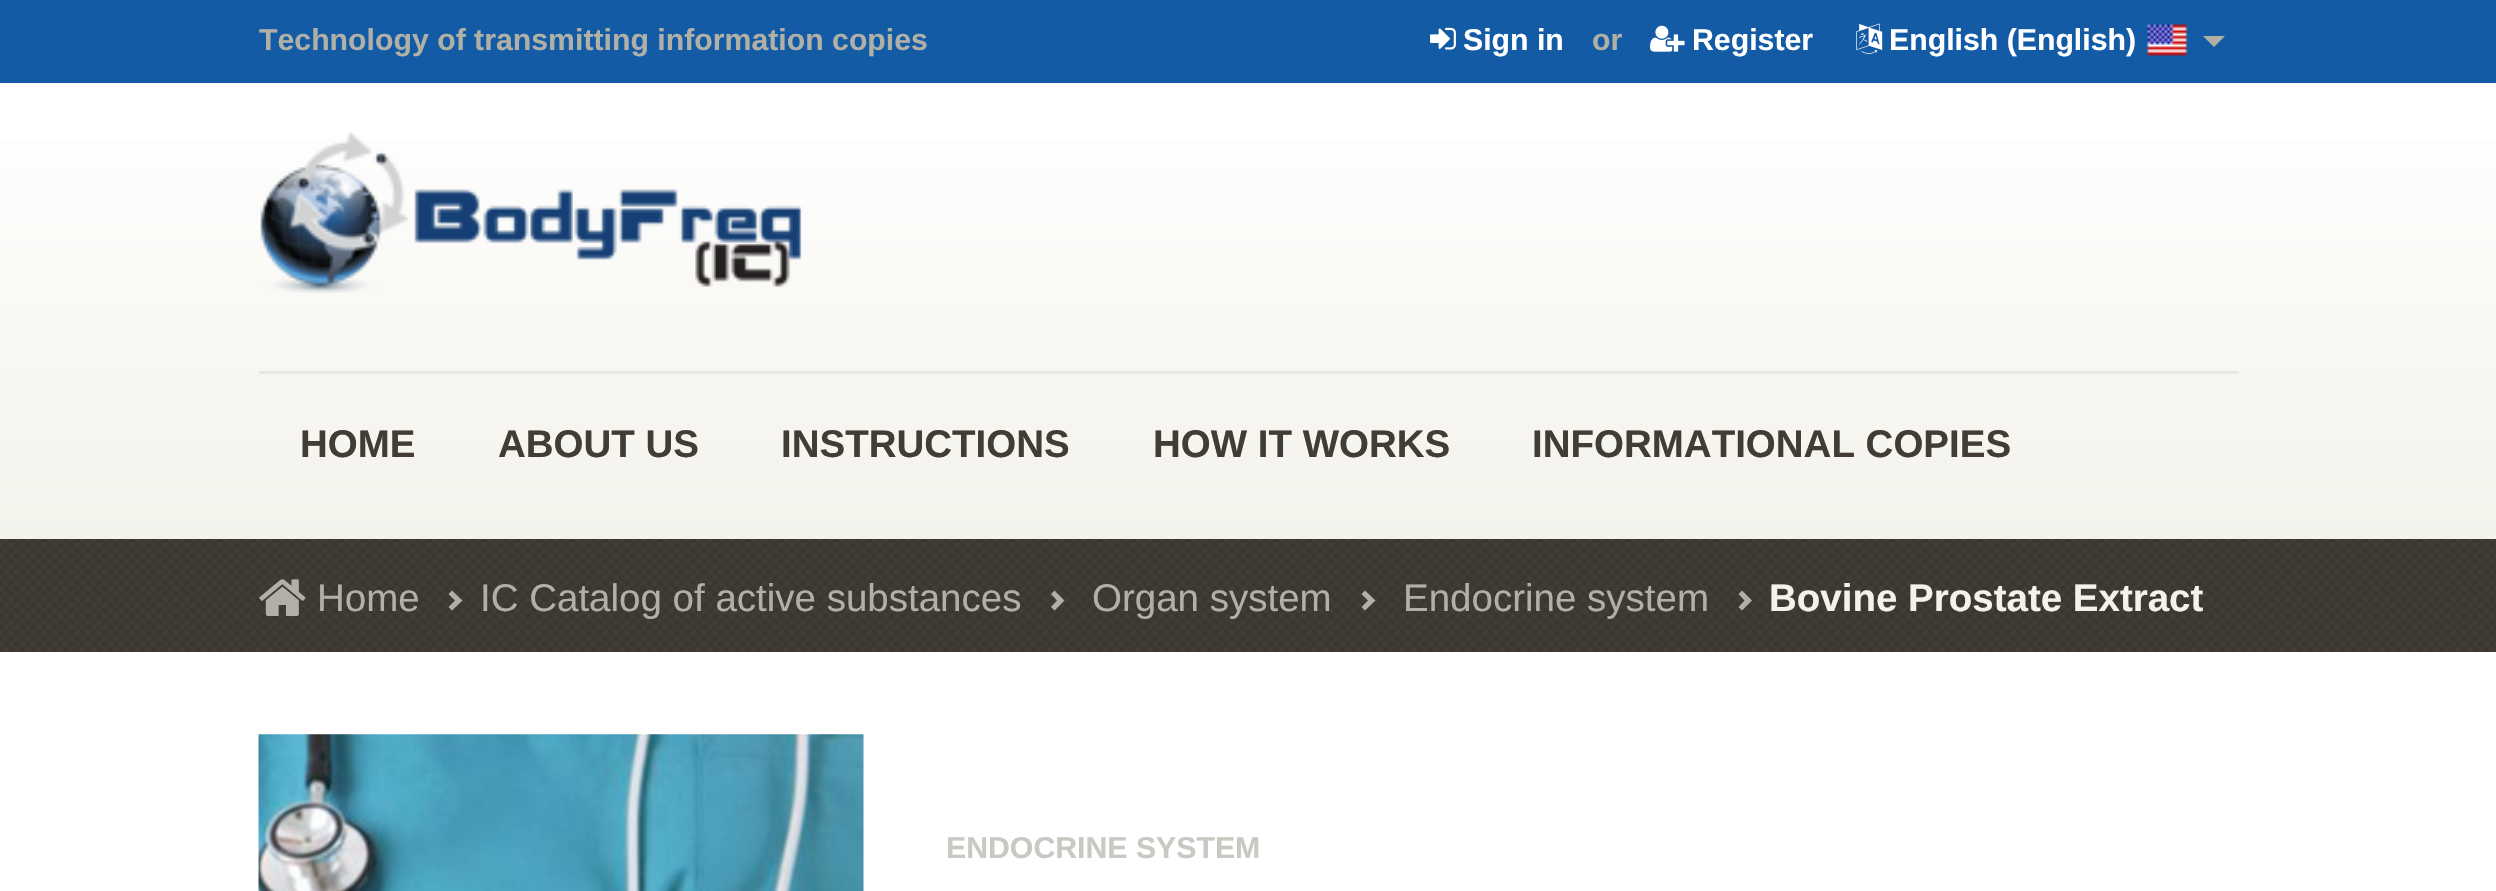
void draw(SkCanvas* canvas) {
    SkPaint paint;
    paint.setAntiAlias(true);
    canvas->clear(0xFFFFFFFF);
    paint.setColor(0xFF135BA5);
    canvas->drawRect(SkRect::MakeXYWH(0, 0, 2496, 83), paint);
    SkFont font1(fontMgr->matchFamilyStyle("Liberation Sans", SkFontStyle::Bold()), 30.25f);
    font1.setSubpixel(true);
    paint.setColor(0xFFB1B0A7);
    canvas->drawString("Technology of transmitting information copies", 259, 50, font1, paint);
    canvas->drawImageRect(SkImages::DeferredFromEncodedData(SkData::MakeFromFileName("img1.png")), SkRect::MakeXYWH(1430, 27, 26, 23), SkSamplingOptions());
    paint.setColor(0xFFFFFFFF);
    canvas->drawString("Sign in", 1463, 50, font1, paint);
    paint.setColor(0xFFB1B0A7);
    canvas->drawString("or", 1592, 50, font1, paint);
    canvas->drawImageRect(SkImages::DeferredFromEncodedData(SkData::MakeFromFileName("img2.png")), SkRect::MakeXYWH(1650, 25, 35, 27), SkSamplingOptions());
    paint.setColor(0xFFFFFFFF);
    canvas->drawString("Register", 1692, 50, font1, paint);
    canvas->drawImageRect(SkImages::DeferredFromEncodedData(SkData::MakeFromFileName("img3.png")), SkRect::MakeXYWH(1856, 23, 27, 31), SkSamplingOptions());
    canvas->drawString("English (English)", 1889, 50, font1, paint);
    canvas->drawImageRect(SkImages::DeferredFromEncodedData(SkData::MakeFromFileName("img4.png")), SkRect::MakeXYWH(2147, 24, 41, 32), SkSamplingOptions());
    paint.setColor(0xFFB1B0A7);
    canvas->drawPath(SkPathBuilder().moveTo(2203, 36).lineTo(2225, 36).lineTo(2214, 47).close().detach(), paint);
    {
        const SkColor colors[] = {0xFFFFFFFF, 0xFFF3F2EB};
        const float stops[] = {0, 1};
        const SkPoint ends[] = {{1249, 82}, {1249, 539}};
        paint.setShader(SkGradientShader::MakeLinear(ends, colors, stops, 2, SkTileMode::kClamp));
        paint.setAlpha(255);
    }
    canvas->drawRect(SkRect::MakeXYWH(0, 139, 2496, 400), paint);
    canvas->drawImageRect(SkImages::DeferredFromEncodedData(SkData::MakeFromFileName("img5.png")), SkRect::MakeXYWH(260, 131, 542, 162), SkSamplingOptions());
    paint.setShader(nullptr);
    paint.setColor(0xFFE7E7E7);
    canvas->drawRect(SkRect::MakeXYWH(259, 371, 1980, 3), paint);
    SkFont font2(fontMgr->matchFamilyStyle("Liberation Sans", SkFontStyle::Bold()), 38.5f);
    font2.setSubpixel(true);
    paint.setColor(0xFF413C35);
    canvas->drawString("HOME", 300, 457, font2, paint);
    canvas->drawString("ABOUT US", 498, 457, font2, paint);
    canvas->drawString("INSTRUCTIONS", 781, 457, font2, paint);
    canvas->drawString("HOW IT WORKS", 1153, 457, font2, paint);
    canvas->drawString("INFORMATIONAL COPIES", 1532, 457, font2, paint);
    canvas->drawRect(SkRect::MakeXYWH(0, 539, 2496, 113), paint);
    canvas->drawImageRect(SkImages::DeferredFromEncodedData(SkData::MakeFromFileName("img6.png")), SkRect::MakeXYWH(0, 539, 2496, 112), SkSamplingOptions());
    canvas->drawImageRect(SkImages::DeferredFromEncodedData(SkData::MakeFromFileName("img7.png")), SkRect::MakeXYWH(259, 579, 47, 37), SkSamplingOptions());
    SkFont font3(fontMgr->matchFamilyStyle("Liberation Sans", SkFontStyle::Normal()), 38.5f);
    font3.setSubpixel(true);
    paint.setColor(0xFFB1B0A7);
    canvas->drawString("Home", 317, 611, font3, paint);
    canvas->drawPath(SkPathBuilder().moveTo(462.5f, 600.5f).lineTo(452, 610.5f).lineTo(448.5f, 607).lineTo(455, 600.5f).lineTo(448.5f, 594).lineTo(452, 590.5f).close().detach(), paint);
    canvas->drawString("IC Catalog of active substances", 480, 611, font3, paint);
    canvas->drawPath(SkPathBuilder().moveTo(1064.5f, 600.5f).lineTo(1054.5f, 610.5f).lineTo(1051, 607).lineTo(1057, 600.5f).lineTo(1051, 594).lineTo(1054.5f, 590.5f).close().detach(), paint);
    canvas->drawString("Organ system", 1092, 611, font3, paint);
    canvas->drawPath(SkPathBuilder().moveTo(1375.5f, 600.5f).lineTo(1365, 610.5f).lineTo(1361.5f, 607).lineTo(1368, 600.5f).lineTo(1361.5f, 594).lineTo(1365, 590.5f).close().detach(), paint);
    canvas->drawString("Endocrine system", 1403, 611, font3, paint);
    canvas->drawPath(SkPathBuilder().moveTo(1752, 600.5f).lineTo(1742, 610.5f).lineTo(1738.5f, 607).lineTo(1744.5f, 600.5f).lineTo(1738.5f, 594).lineTo(1742, 590.5f).close().detach(), paint);
    paint.setColor(0xFFF3F2EB);
    canvas->drawString("Bovine Prostate Extract", 1769, 611, font2, paint);
    canvas->drawImageRect(SkImages::DeferredFromEncodedData(SkData::MakeFromFileName("img8.png")), SkRect::MakeXYWH(258, 734, 606, 157), SkSamplingOptions());
    paint.setColor(0xFFC9C8C2);
    canvas->drawString("ENDOCRINE SYSTEM", 946, 858, font1, paint);
}
